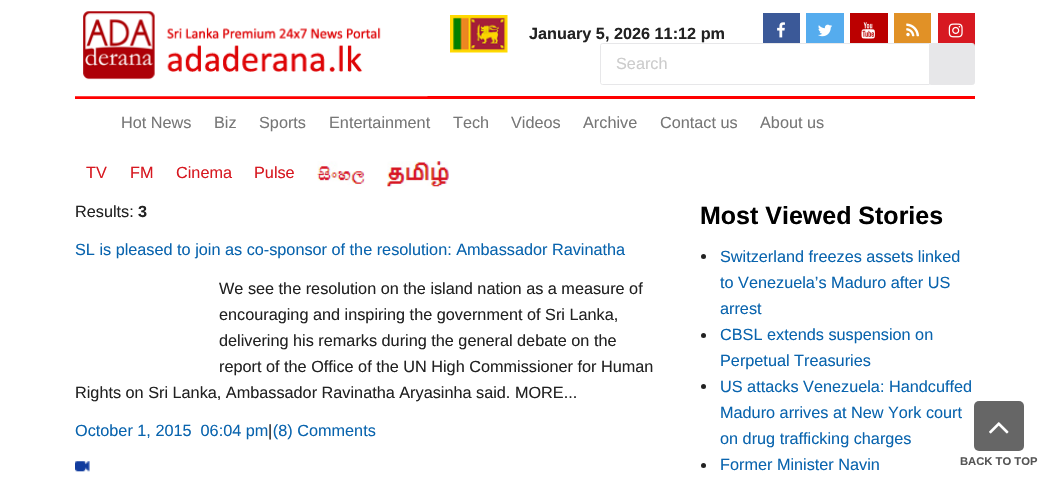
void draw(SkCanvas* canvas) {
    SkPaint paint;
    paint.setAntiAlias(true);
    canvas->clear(0xFFFFFFFF);
    paint.setColor(0xFFFF0000);
    canvas->drawRect(SkRect::MakeXYWH(75, 96, 900, 3), paint);
    canvas->drawImageRect(SkImages::DeferredFromEncodedData(SkData::MakeFromFileName("img1.png")), SkRect::MakeXYWH(75, 11, 353, 86), SkSamplingOptions());
    canvas->drawImageRect(SkImages::DeferredFromEncodedData(SkData::MakeFromFileName("img2.png")), SkRect::MakeXYWH(450, 15, 58, 38), SkSamplingOptions());
    SkFont font1(fontMgr->matchFamilyStyle("Liberation Sans", SkFontStyle::Bold()), 16.25f);
    font1.setSubpixel(true);
    paint.setColor(0xFF222222);
    canvas->drawString("January 5, 2026 11:12 pm", 529, 39, font1, paint);
    paint.setColor(0xFF3B5998);
    canvas->drawRect(SkRect::MakeXYWH(763, 13, 37, 30), paint);
    canvas->drawImageRect(SkImages::DeferredFromEncodedData(SkData::MakeFromFileName("img3.png")), SkRect::MakeXYWH(777, 22, 8, 16), SkSamplingOptions());
    paint.setColor(0xFF55ACEE);
    canvas->drawRect(SkRect::MakeXYWH(806, 13, 38, 30), paint);
    canvas->drawImageRect(SkImages::DeferredFromEncodedData(SkData::MakeFromFileName("img4.png")), SkRect::MakeXYWH(818, 24, 14, 13), SkSamplingOptions());
    paint.setColor(0xFFBB0000);
    canvas->drawRect(SkRect::MakeXYWH(850, 13, 38, 30), paint);
    canvas->drawImageRect(SkImages::DeferredFromEncodedData(SkData::MakeFromFileName("img5.png")), SkRect::MakeXYWH(861, 22, 14, 17), SkSamplingOptions());
    paint.setColor(0xFFE19126);
    canvas->drawRect(SkRect::MakeXYWH(894, 13, 37, 30), paint);
    canvas->drawImageRect(SkImages::DeferredFromEncodedData(SkData::MakeFromFileName("img6.png")), SkRect::MakeXYWH(906, 23, 13, 14), SkSamplingOptions());
    paint.setColor(0xFFD71921);
    canvas->drawRect(SkRect::MakeXYWH(938, 13, 37, 33), paint);
    canvas->drawImageRect(SkImages::DeferredFromEncodedData(SkData::MakeFromFileName("img7.png")), SkRect::MakeXYWH(948, 23, 15, 15), SkSamplingOptions());
    paint.setStyle(SkPaint::kStroke_Style);
    paint.setStrokeWidth(1);
    paint.setColor(0xFFE7E7E9);
    canvas->drawPath(SkPathBuilder().moveTo(602.5f, 43.5f).lineTo(929.5f, 43.5f).lineTo(929.5f, 84.5f).lineTo(602.5f, 84.5f).cubicTo(601.5f, 84.5f, 600.5f, 83.5f, 600.5f, 82.5f).lineTo(600.5f, 45.5f).cubicTo(600.5f, 44.5f, 601.5f, 43.5f, 602.5f, 43.5f).close().detach(), paint);
    SkFont font2(fontMgr->matchFamilyStyle("Liberation Sans", SkFontStyle::Normal()), 16.25f);
    font2.setSubpixel(true);
    paint.setStyle(SkPaint::kFill_Style);
    paint.setColor(0xFFCCCCCC);
    canvas->drawString("Search", 616, 69, font2, paint);
    paint.setColor(0xFFE7E7E9);
    canvas->drawPath(SkPathBuilder().moveTo(930.5f, 43.5f).lineTo(972.5f, 43.5f).cubicTo(973.5f, 43.5f, 974.5f, 44.5f, 974.5f, 45.5f).lineTo(974.5f, 82.5f).cubicTo(974.5f, 83.5f, 973.5f, 84.5f, 972.5f, 84.5f).lineTo(930.5f, 84.5f).close().detach(), paint);
    paint.setStyle(SkPaint::kStroke_Style);
    canvas->drawPath(SkPathBuilder().moveTo(930.5f, 43.5f).lineTo(972.5f, 43.5f).cubicTo(973.5f, 43.5f, 974.5f, 44.5f, 974.5f, 45.5f).lineTo(974.5f, 82.5f).cubicTo(974.5f, 83.5f, 973.5f, 84.5f, 972.5f, 84.5f).lineTo(930.5f, 84.5f).close().detach(), paint);
    paint.setStyle(SkPaint::kFill_Style);
    paint.setColor(0xFF777777);
    canvas->drawString("Hot News", 121, 128, font2, paint);
    canvas->drawString("Biz", 214, 128, font2, paint);
    canvas->drawString("Sports", 259, 128, font2, paint);
    canvas->drawString("Entertainment", 329, 128, font2, paint);
    canvas->drawString("Tech", 453, 128, font2, paint);
    canvas->drawString("Videos", 511, 128, font2, paint);
    canvas->drawString("Archive", 583, 128, font2, paint);
    canvas->drawString("Contact us", 660, 128, font2, paint);
    canvas->drawString("About us", 760, 128, font2, paint);
    paint.setColor(0xFFD71921);
    canvas->drawString("TV", 86, 178, font2, paint);
    canvas->drawString("FM", 130, 178, font2, paint);
    canvas->drawString("Cinema", 176, 178, font2, paint);
    canvas->drawString("Pulse", 254, 178, font2, paint);
    canvas->drawImageRect(SkImages::DeferredFromEncodedData(SkData::MakeFromFileName("img8.png")), SkRect::MakeXYWH(317, 161, 48, 24), SkSamplingOptions());
    canvas->drawImageRect(SkImages::DeferredFromEncodedData(SkData::MakeFromFileName("img9.png")), SkRect::MakeXYWH(387, 161, 62, 26), SkSamplingOptions());
    paint.setColor(0xFF222222);
    canvas->drawString("Results:", 75, 217, font2, paint);
    canvas->drawString("3", 138, 217, font1, paint);
    paint.setColor(0xFF0964AE);
    canvas->drawString("SL is pleased to join as co-sponsor of the resolution: Ambassador Ravinatha", 75, 255, font2, paint);
    paint.setColor(0xFF222222);
    canvas->drawString("We see the resolution on the island nation as a measure of", 219, 294, font2, paint);
    canvas->drawString("encouraging and inspiring the government of Sri Lanka,", 219, 320, font2, paint);
    canvas->drawString("delivering his remarks during the general debate on the", 219, 346, font2, paint);
    canvas->drawString("report of the Office of the UN High Commissioner for Human", 219, 372, font2, paint);
    canvas->drawString("Rights on Sri Lanka, Ambassador Ravinatha Aryasinha said. MORE...", 75, 398, font2, paint);
    paint.setColor(0xFF0964AE);
    canvas->drawString("October 1, 2015  06:04 pm (8) Comments", 75, 436, font2, paint);
    paint.setColor(0xFF222222);
    canvas->drawString("|", 268, 436, font2, paint);
    canvas->drawImageRect(SkImages::DeferredFromEncodedData(SkData::MakeFromFileName("img10.png")), SkRect::MakeXYWH(75, 461, 15, 11), SkSamplingOptions());
    SkFont font3(fontMgr->matchFamilyStyle("Liberation Sans", SkFontStyle::Bold()), 25);
    font3.setSubpixel(true);
    paint.setColor(0xFF000000);
    canvas->drawString("Most Viewed Stories", 700, 224, font3, paint);
    paint.setColor(0xFF222222);
    canvas->drawCircle(703.5f, 256.5f, 2.5f, paint);
    paint.setColor(0xFF0964AE);
    canvas->drawString("Switzerland freezes assets linked", 720, 262, font2, paint);
    canvas->drawString("to Venezuela’s Maduro after US", 720, 288, font2, paint);
    canvas->drawString("arrest", 720, 314, font2, paint);
    paint.setColor(0xFF222222);
    canvas->drawCircle(703.5f, 335.5f, 2.5f, paint);
    paint.setColor(0xFF0964AE);
    canvas->drawString("CBSL extends suspension on", 720, 340, font2, paint);
    canvas->drawString("Perpetual Treasuries", 720, 366, font2, paint);
    paint.setColor(0xFF222222);
    canvas->drawCircle(703.5f, 386.5f, 2.5f, paint);
    paint.setColor(0xFF0964AE);
    canvas->drawString("US attacks Venezuela: Handcuffed", 720, 392, font2, paint);
    canvas->drawString("Maduro arrives at New York court", 720, 418, font2, paint);
    canvas->drawString("on drug trafficking charges", 720, 444, font2, paint);
    paint.setColor(0xFF222222);
    canvas->drawCircle(703.5f, 465.5f, 2.5f, paint);
    paint.setColor(0xFF0964AE);
    canvas->drawString("Former Minister Navin", 720, 470, font2, paint);
    paint.setColor(0xFF666666);
    canvas->drawRoundRect(SkRect::MakeXYWH(974, 401, 50, 50), 5, 5, paint);
    canvas->drawImageRect(SkImages::DeferredFromEncodedData(SkData::MakeFromFileName("img11.png")), SkRect::MakeXYWH(989, 422, 20, 12), SkSamplingOptions());
    SkFont font4(fontMgr->matchFamilyStyle("Liberation Sans", SkFontStyle::Bold()), 11.25f);
    font4.setSubpixel(true);
    paint.setColor(0xFF555555);
    canvas->drawString("BACK TO TOP", 960, 465, font4, paint);
}
